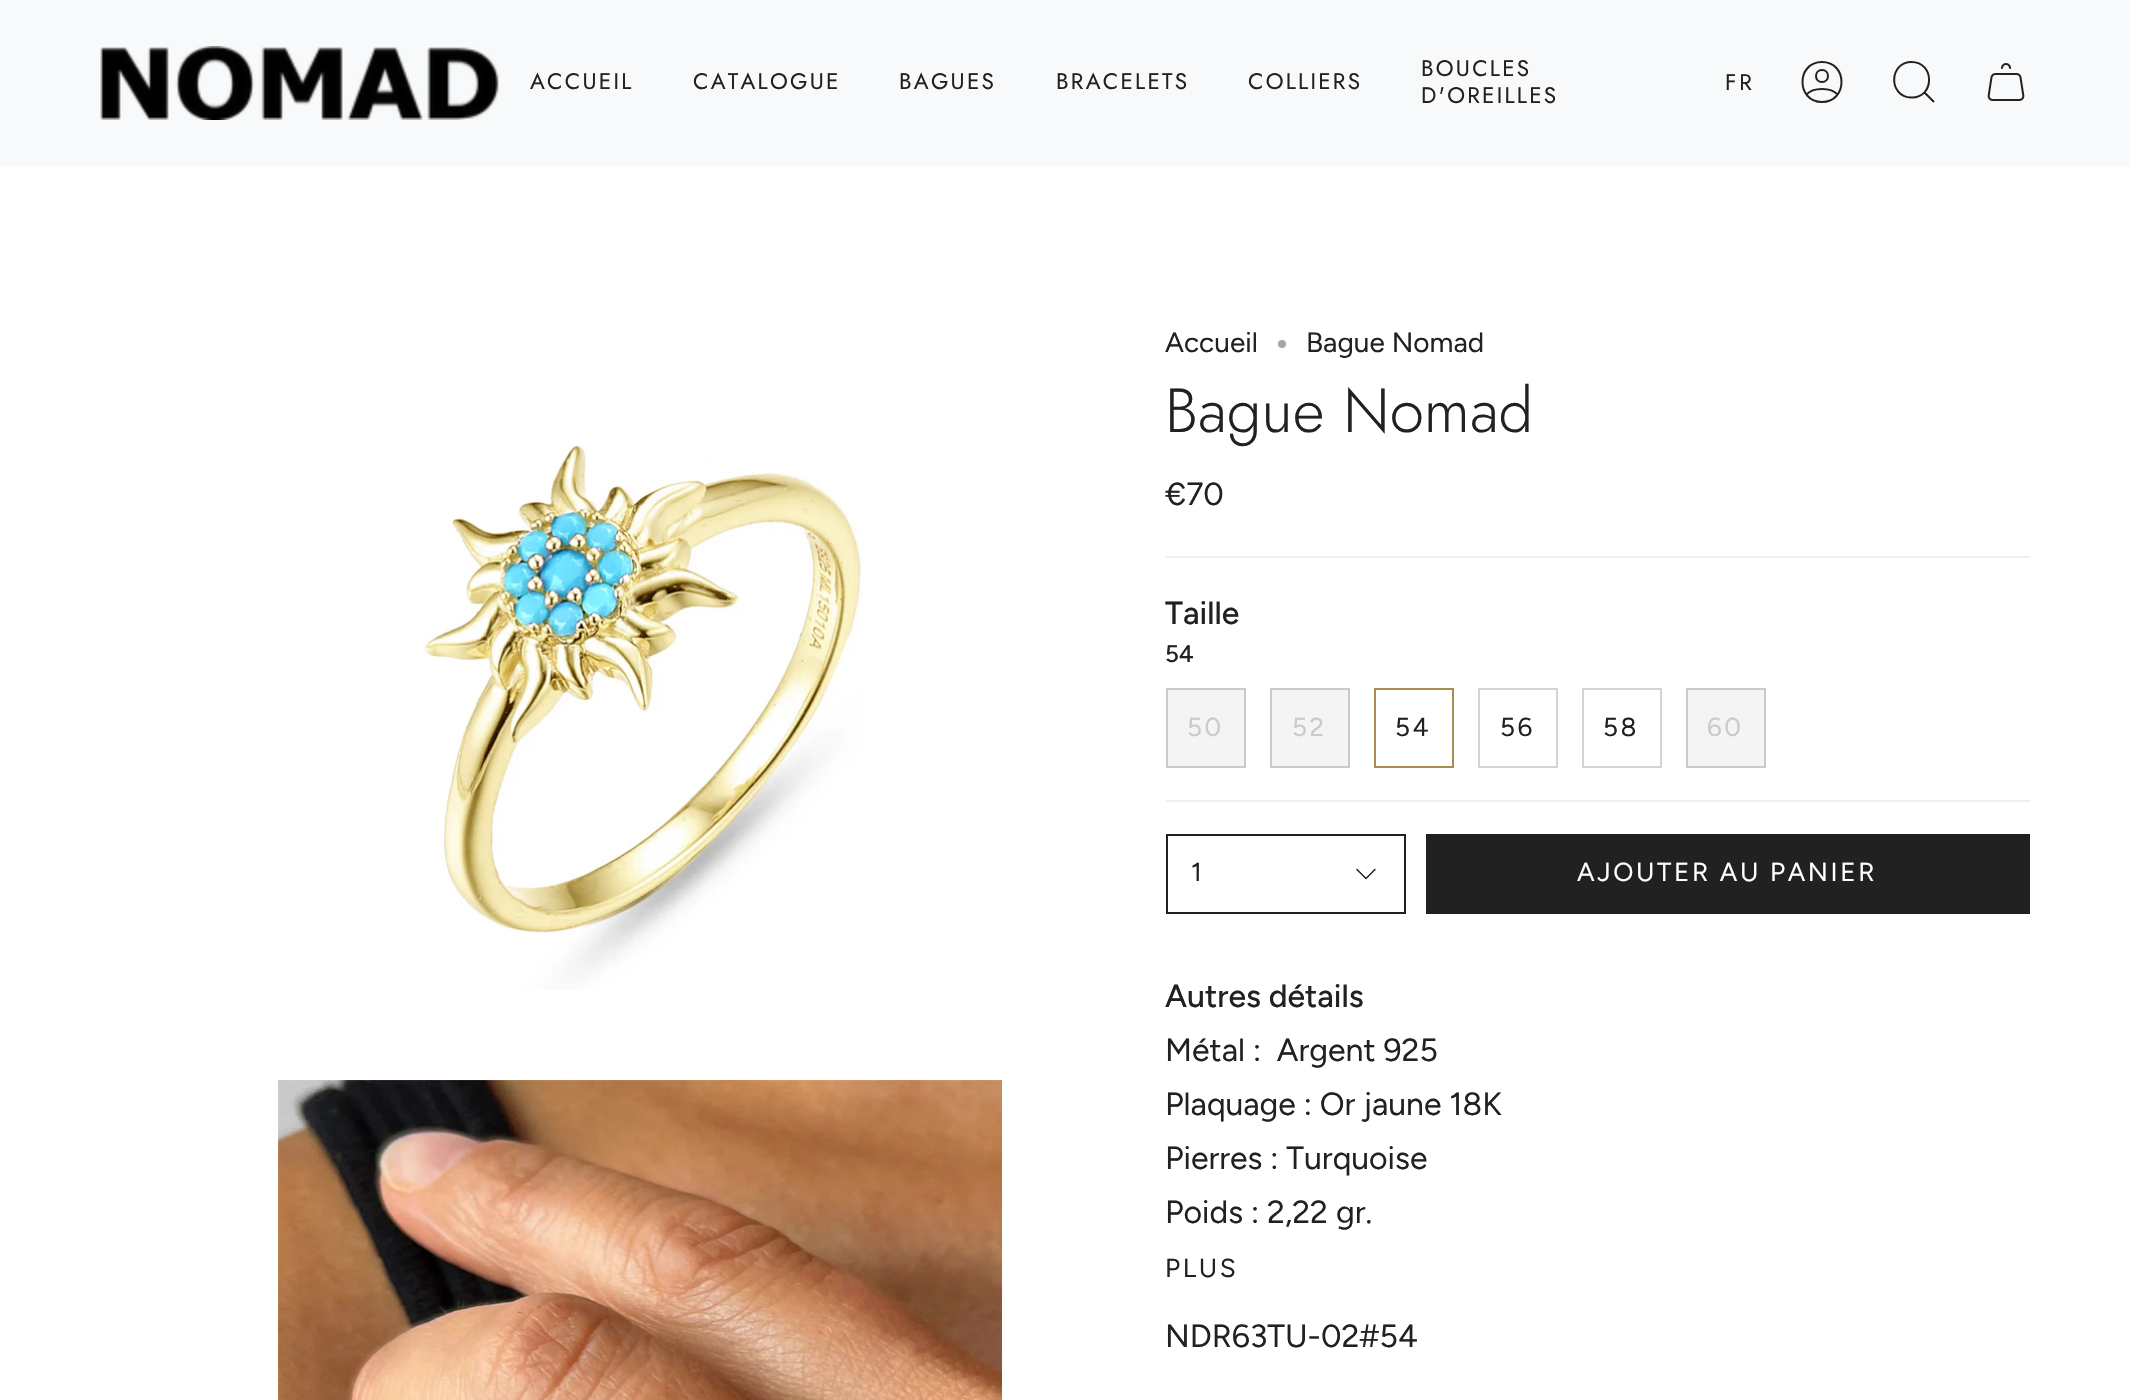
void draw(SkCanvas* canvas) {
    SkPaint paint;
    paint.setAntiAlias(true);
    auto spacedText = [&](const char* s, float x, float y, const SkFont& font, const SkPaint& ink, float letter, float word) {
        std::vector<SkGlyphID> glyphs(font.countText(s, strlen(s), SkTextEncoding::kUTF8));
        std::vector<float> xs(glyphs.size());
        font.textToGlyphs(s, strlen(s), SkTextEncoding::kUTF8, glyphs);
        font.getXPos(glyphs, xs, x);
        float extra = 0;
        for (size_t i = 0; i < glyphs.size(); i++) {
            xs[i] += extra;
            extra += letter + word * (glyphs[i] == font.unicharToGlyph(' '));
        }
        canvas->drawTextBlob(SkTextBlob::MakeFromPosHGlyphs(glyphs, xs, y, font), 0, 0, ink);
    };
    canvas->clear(0xFFFFFFFF);
    paint.setColor(0xFFF7F9FA);
    canvas->drawRect(SkRect::MakeXYWH(0, 0, 2129, 166), paint);
    canvas->drawImageRect(SkImages::DeferredFromEncodedData(SkData::MakeFromFileName("img1.png")), SkRect::MakeXYWH(100, 46, 399, 74), SkSamplingOptions());
    SkFont font1(fontMgr->matchFamilyStyle("Jost", SkFontStyle::Normal()), 22.5f);
    font1.setSubpixel(true);
    paint.setColor(0xFF212121);
    spacedText("ACCUEIL", 530, 89, font1, paint, 2.25f, 0);
    spacedText("CATALOGUE", 693, 89, font1, paint, 2.25f, 0);
    spacedText("BAGUES", 899, 89, font1, paint, 2.25f, 0);
    spacedText("BRACELETS", 1056, 89, font1, paint, 2.25f, 0);
    spacedText("COLLIERS", 1248, 89, font1, paint, 2.25f, 0);
    spacedText("BOUCLES", 1421, 76, font1, paint, 2.25f, 0);
    spacedText("D'OREILLES", 1421, 103, font1, paint, 2.25f, 0);
    spacedText("FR", 1725, 90, font1, paint, 3, 0);
    paint.setStyle(SkPaint::kStroke_Style);
    paint.setStrokeWidth(2);
    paint.setStrokeCap(SkPaint::kRound_Cap);
    paint.setStrokeJoin(SkPaint::kRound_Join);
    canvas->drawPath(SkPathBuilder().moveTo(1822, 62).cubicTo(1796, 62, 1796, 102, 1822, 102).cubicTo(1848, 102, 1848, 62, 1822, 62).close().moveTo(1806.5f, 94.5f).cubicTo(1812.5f, 87, 1831.5f, 87, 1837.5f, 94.5f).moveTo(1822, 82).cubicTo(1830, 82, 1830, 70, 1822, 70).cubicTo(1814, 70, 1814, 82, 1822, 82).close().detach(), paint);
    paint.setStrokeCap(SkPaint::kButt_Cap);
    paint.setStrokeJoin(SkPaint::kMiter_Join);
    canvas->drawPath(SkPathBuilder().moveTo(1911.5f, 62).cubicTo(1935, 62, 1935, 98.5f, 1911, 97.5f).cubicTo(1888, 96.5f, 1889, 62, 1911.5f, 62).close().moveTo(1924, 92).lineTo(1934, 102).detach(), paint);
    canvas->drawImageRect(SkImages::DeferredFromEncodedData(SkData::MakeFromFileName("img2.png")), SkRect::MakeXYWH(1987, 63, 38, 38), SkSamplingOptions());
    canvas->drawImageRect(SkImages::DeferredFromEncodedData(SkData::MakeFromFileName("img3.png")), SkRect::MakeXYWH(424, 443, 441, 547), SkSamplingOptions());
    canvas->drawImageRect(SkImages::DeferredFromEncodedData(SkData::MakeFromFileName("img4.png")), SkRect::MakeXYWH(278, 1080, 724, 320), SkSamplingOptions());
    SkFont font2(fontMgr->matchFamilyStyle("Figtree", SkFontStyle::Normal()), 28);
    font2.setSubpixel(true);
    paint.setStyle(SkPaint::kFill_Style);
    canvas->drawString("Accueil", 1165, 352, font2, paint);
    paint.setColor(0xFFA6A6A6);
    canvas->drawCircle(1282, 344, 4, paint);
    paint.setColor(0xFF212121);
    canvas->drawString("Bague Nomad", 1306, 352, font2, paint);
    SkFont font3(fontMgr->matchFamilyStyle("Jost", SkFontStyle(300, SkFontStyle::kNormal_Width, SkFontStyle::kUpright_Slant)), 62);
    font3.setSubpixel(true);
    canvas->drawString("Bague Nomad", 1165, 432, font3, paint);
    SkFont font4(fontMgr->matchFamilyStyle("Figtree", SkFontStyle::Normal()), 32);
    font4.setSubpixel(true);
    canvas->drawString("€70", 1165, 505, font4, paint);
    paint.setColor(0xFFF0F0F0);
    canvas->drawRect(SkRect::MakeXYWH(1166, 556, 864, 2), paint);
    canvas->drawRect(SkRect::MakeXYWH(1166, 800, 864, 2), paint);
    SkFont font5(fontMgr->matchFamilyStyle("Figtree", SkFontStyle(500, SkFontStyle::kNormal_Width, SkFontStyle::kUpright_Slant)), 32);
    font5.setSubpixel(true);
    paint.setColor(0xFF212121);
    canvas->drawString("Taille", 1165, 624, font5, paint);
    SkFont font6(fontMgr->matchFamilyStyle("Figtree", SkFontStyle(500, SkFontStyle::kNormal_Width, SkFontStyle::kUpright_Slant)), 24);
    font6.setSubpixel(true);
    canvas->drawString("54", 1165, 662, font6, paint);
    paint.setColor(0xFFF4F4F4);
    canvas->drawRect(SkRect::MakeXYWH(1167, 689, 78, 78), paint);
    paint.setStyle(SkPaint::kStroke_Style);
    paint.setColor(0xFFCACACA);
    canvas->drawRect(SkRect::MakeXYWH(1167, 689, 78, 78), paint);
    SkFont font7(fontMgr->matchFamilyStyle("Figtree", SkFontStyle::Normal()), 26);
    font7.setSubpixel(true);
    paint.setStyle(SkPaint::kFill_Style);
    spacedText("50", 1187, 736, font7, paint, 2.6f, 0);
    paint.setColor(0xFFF4F4F4);
    canvas->drawRect(SkRect::MakeXYWH(1271, 689, 78, 78), paint);
    paint.setStyle(SkPaint::kStroke_Style);
    paint.setColor(0xFFCACACA);
    canvas->drawRect(SkRect::MakeXYWH(1271, 689, 78, 78), paint);
    paint.setStyle(SkPaint::kFill_Style);
    spacedText("52", 1292, 736, font7, paint, 2.6f, 0);
    paint.setStyle(SkPaint::kStroke_Style);
    paint.setColor(0xFFAB8C52);
    canvas->drawRect(SkRect::MakeXYWH(1375, 689, 78, 78), paint);
    paint.setStyle(SkPaint::kFill_Style);
    paint.setColor(0xFF212121);
    spacedText("54", 1395, 736, font7, paint, 2.6f, 0);
    paint.setStyle(SkPaint::kStroke_Style);
    paint.setColor(0xFFD3D3D3);
    canvas->drawRect(SkRect::MakeXYWH(1479, 689, 78, 78), paint);
    paint.setStyle(SkPaint::kFill_Style);
    paint.setColor(0xFF212121);
    spacedText("56", 1500, 736, font7, paint, 2.6f, 0);
    paint.setStyle(SkPaint::kStroke_Style);
    paint.setColor(0xFFD3D3D3);
    canvas->drawRect(SkRect::MakeXYWH(1583, 689, 78, 78), paint);
    paint.setStyle(SkPaint::kFill_Style);
    paint.setColor(0xFF212121);
    spacedText("58", 1603, 736, font7, paint, 2.6f, 0);
    paint.setColor(0xFFF4F4F4);
    canvas->drawRect(SkRect::MakeXYWH(1687, 689, 78, 78), paint);
    paint.setStyle(SkPaint::kStroke_Style);
    paint.setColor(0xFFCACACA);
    canvas->drawRect(SkRect::MakeXYWH(1687, 689, 78, 78), paint);
    paint.setStyle(SkPaint::kFill_Style);
    spacedText("60", 1707, 736, font7, paint, 2.6f, 0);
    paint.setStyle(SkPaint::kStroke_Style);
    paint.setColor(0xFF212121);
    canvas->drawRect(SkRect::MakeXYWH(1167, 835, 238, 78), paint);
    paint.setStyle(SkPaint::kFill_Style);
    canvas->drawString("1", 1191, 881, font7, paint);
    paint.setStyle(SkPaint::kStroke_Style);
    paint.setStrokeWidth(1.5f);
    paint.setStrokeCap(SkPaint::kRound_Cap);
    paint.setStrokeJoin(SkPaint::kRound_Join);
    canvas->drawPath(SkPathBuilder().moveTo(1357, 869.5f).lineTo(1366, 878.5f).lineTo(1375, 869.5f).detach(), paint);
    paint.setStyle(SkPaint::kFill_Style);
    canvas->drawRect(SkRect::MakeXYWH(1426, 834, 604, 80), paint);
    paint.setColor(0xFFFFFFFF);
    spacedText("AJOUTER AU PANIER", 1577, 881, font7, paint, 2.6f, 0);
    paint.setColor(0xFF212121);
    canvas->drawString("Autres détails", 1165, 1007, font5, paint);
    canvas->drawString("Métal :  Argent 925", 1165, 1061, font4, paint);
    canvas->drawString("Plaquage : Or jaune 18K", 1165, 1115, font4, paint);
    canvas->drawString("Pierres : Turquoise", 1165, 1169, font4, paint);
    canvas->drawString("Poids : 2,22 gr.", 1165, 1223, font4, paint);
    spacedText("PLUS", 1165, 1277, font7, paint, 2.6f, 0);
    canvas->drawString("NDR63TU-02#54", 1165, 1347, font4, paint);
}
